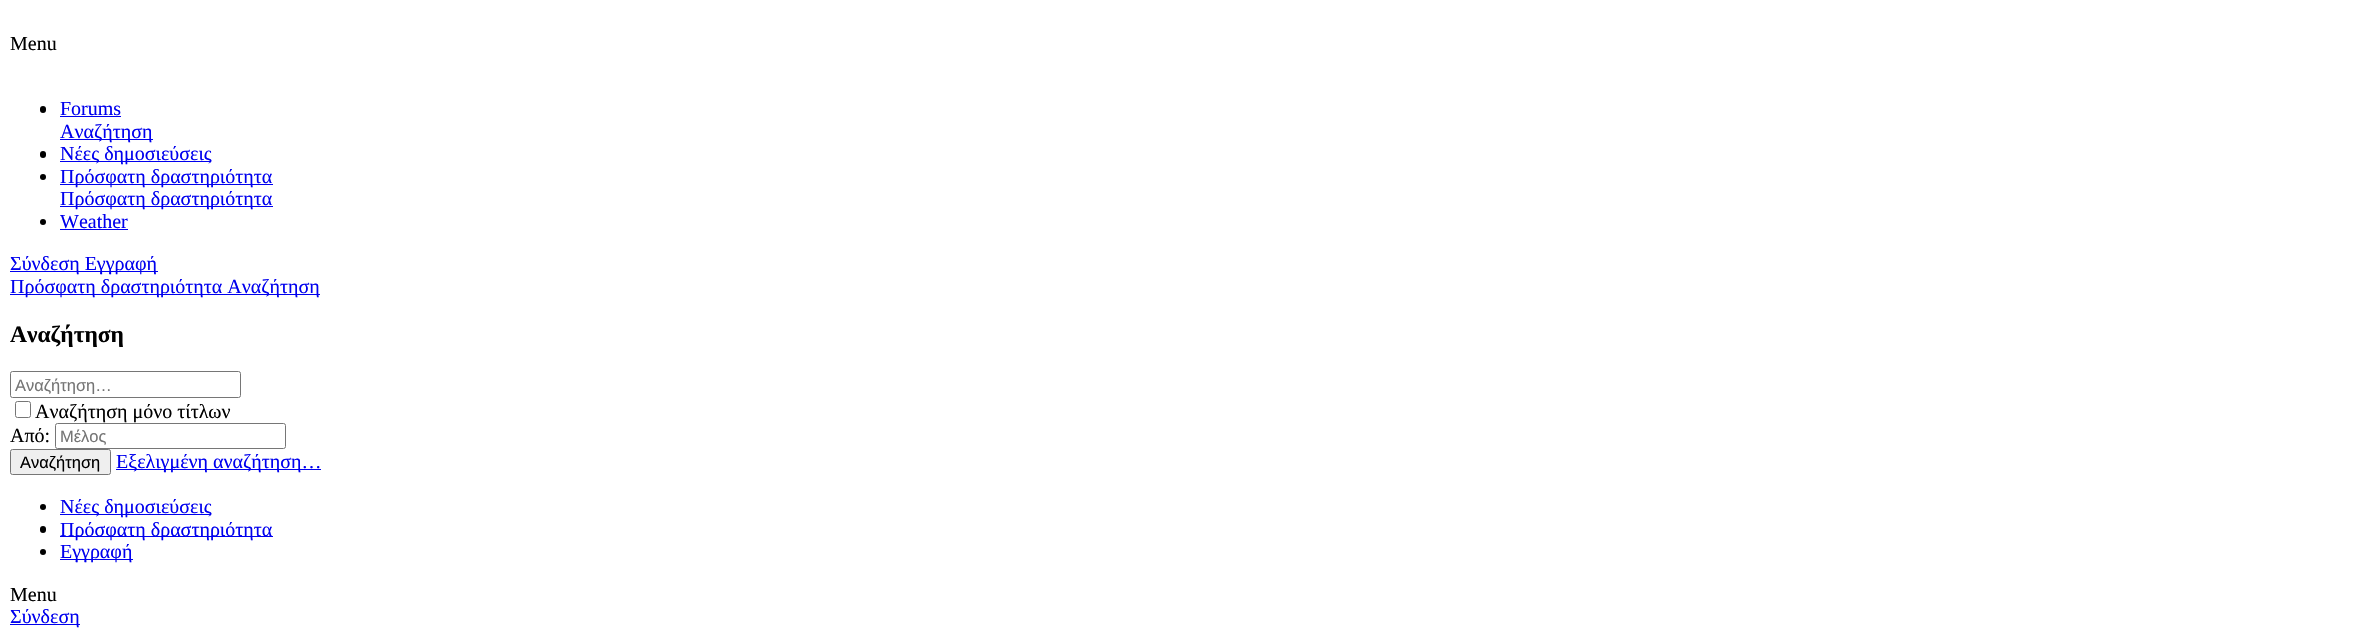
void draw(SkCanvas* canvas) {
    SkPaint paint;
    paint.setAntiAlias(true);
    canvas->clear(0xFFFFFFFF);
    SkFont font1(fontMgr->matchFamilyStyle("Liberation Serif", SkFontStyle::Normal()), 20);
    font1.setSubpixel(true);
    paint.setColor(0xFF000000);
    canvas->drawString("Menu", 10, 50, font1, paint);
    canvas->drawRoundRect(SkRect::MakeXYWH(40, 106, 6, 7), 3, 3, paint);
    paint.setColor(0xFF0000EE);
    canvas->drawString("Forums", 60, 115, font1, paint);
    canvas->drawRect(SkRect::MakeXYWH(60, 116, 61, 1), paint);
    canvas->drawRect(SkRect::MakeXYWH(60, 139, 93, 1), paint);
    canvas->drawString("Αναζήτηση", 60, 138, font1, paint);
    paint.setColor(0xFF000000);
    canvas->drawRoundRect(SkRect::MakeXYWH(40, 151, 6, 7), 3, 3, paint);
    paint.setColor(0xFF0000EE);
    canvas->drawRect(SkRect::MakeXYWH(60, 161, 151, 1), paint);
    canvas->drawString("Νέες δημοσιεύσεις", 60, 160, font1, paint);
    paint.setColor(0xFF000000);
    canvas->drawCircle(43, 177, 3, paint);
    paint.setColor(0xFF0000EE);
    canvas->drawRect(SkRect::MakeXYWH(60, 184, 213, 1), paint);
    canvas->drawString("Πρόσφατη δραστηριότητα", 60, 183, font1, paint);
    canvas->drawRect(SkRect::MakeXYWH(60, 206, 213, 1), paint);
    canvas->drawString("Πρόσφατη δραστηριότητα", 60, 205, font1, paint);
    paint.setColor(0xFF000000);
    canvas->drawCircle(43, 222, 3, paint);
    paint.setColor(0xFF0000EE);
    canvas->drawString("Weather", 60, 228, font1, paint);
    canvas->drawRect(SkRect::MakeXYWH(60, 229, 68, 1), paint);
    canvas->drawRect(SkRect::MakeXYWH(10, 271, 148, 1), paint);
    canvas->drawString("Σύνδεση Εγγραφή", 10, 270, font1, paint);
    canvas->drawRect(SkRect::MakeXYWH(10, 294, 310, 1), paint);
    canvas->drawString("Πρόσφατη δραστηριότητα Αναζήτηση", 10, 293, font1, paint);
    SkFont font2(fontMgr->matchFamilyStyle("Liberation Serif", SkFontStyle::Bold()), 23.5f);
    font2.setSubpixel(true);
    paint.setColor(0xFF000000);
    canvas->drawString("Αναζήτηση", 10, 342, font2, paint);
    paint.setStyle(SkPaint::kStroke_Style);
    paint.setStrokeWidth(1);
    paint.setColor(0xFF767676);
    canvas->drawRoundRect(SkRect::MakeXYWH(10.5f, 371.5f, 230, 26), 2, 2, paint);
    canvas->save();
    canvas->clipRect(SkRect::MakeXYWH(15, 375, 221, 19));
    SkFont font3(fontMgr->matchFamilyStyle("Liberation Sans", SkFontStyle::Normal()), 16.5f);
    font3.setSubpixel(true);
    paint.setStyle(SkPaint::kFill_Style);
    paint.setColor(0xFF757575);
    canvas->drawString("Αναζήτηση…", 15, 391, font3, paint);
    canvas->restore();
    paint.setStyle(SkPaint::kStroke_Style);
    paint.setColor(0xFF767676);
    canvas->drawRoundRect(SkRect::MakeXYWH(15.5f, 401.5f, 15, 16), 2, 2, paint);
    paint.setStyle(SkPaint::kFill_Style);
    paint.setColor(0xFF000000);
    canvas->drawString("Αναζήτηση μόνο τίτλων", 35, 418, font1, paint);
    canvas->drawString("Από:", 10, 442, font1, paint);
    paint.setStyle(SkPaint::kStroke_Style);
    paint.setColor(0xFF767676);
    canvas->drawRoundRect(SkRect::MakeXYWH(55.5f, 423.5f, 230, 25), 2, 2, paint);
    paint.setStyle(SkPaint::kFill_Style);
    paint.setColor(0xFF757575);
    canvas->drawString("Μέλος", 60, 442, font3, paint);
    paint.setColor(0xFFEFEFEF);
    canvas->drawRoundRect(SkRect::MakeXYWH(10.5f, 449.5f, 100, 25), 2, 2, paint);
    paint.setStyle(SkPaint::kStroke_Style);
    paint.setColor(0xFF767676);
    canvas->drawRoundRect(SkRect::MakeXYWH(10.5f, 449.5f, 100, 25), 2, 2, paint);
    paint.setStyle(SkPaint::kFill_Style);
    paint.setColor(0xFF000000);
    canvas->drawString("Αναζήτηση", 20, 468, font3, paint);
    paint.setColor(0xFF0000EE);
    canvas->drawRect(SkRect::MakeXYWH(116, 469, 205, 1), paint);
    canvas->drawString("Εξελιγμένη αναζήτηση…", 116, 468, font1, paint);
    paint.setColor(0xFF000000);
    canvas->drawCircle(43, 507, 3, paint);
    paint.setColor(0xFF0000EE);
    canvas->drawRect(SkRect::MakeXYWH(60, 514, 151, 1), paint);
    canvas->drawString("Νέες δημοσιεύσεις", 60, 513, font1, paint);
    paint.setColor(0xFF000000);
    canvas->drawRoundRect(SkRect::MakeXYWH(40, 526, 6, 7), 3, 3, paint);
    paint.setColor(0xFF0000EE);
    canvas->drawRect(SkRect::MakeXYWH(60, 536, 213, 1), paint);
    canvas->drawString("Πρόσφατη δραστηριότητα", 60, 536, font1, paint);
    paint.setColor(0xFF000000);
    canvas->drawCircle(43, 552, 3, paint);
    paint.setColor(0xFF0000EE);
    canvas->drawRect(SkRect::MakeXYWH(60, 559, 73, 1), paint);
    canvas->drawString("Εγγραφή", 60, 558, font1, paint);
    paint.setColor(0xFF000000);
    canvas->drawString("Menu", 10, 601, font1, paint);
    paint.setColor(0xFF0000EE);
    canvas->drawRect(SkRect::MakeXYWH(10, 624, 70, 1), paint);
    canvas->drawString("Σύνδεση", 10, 623, font1, paint);
}
